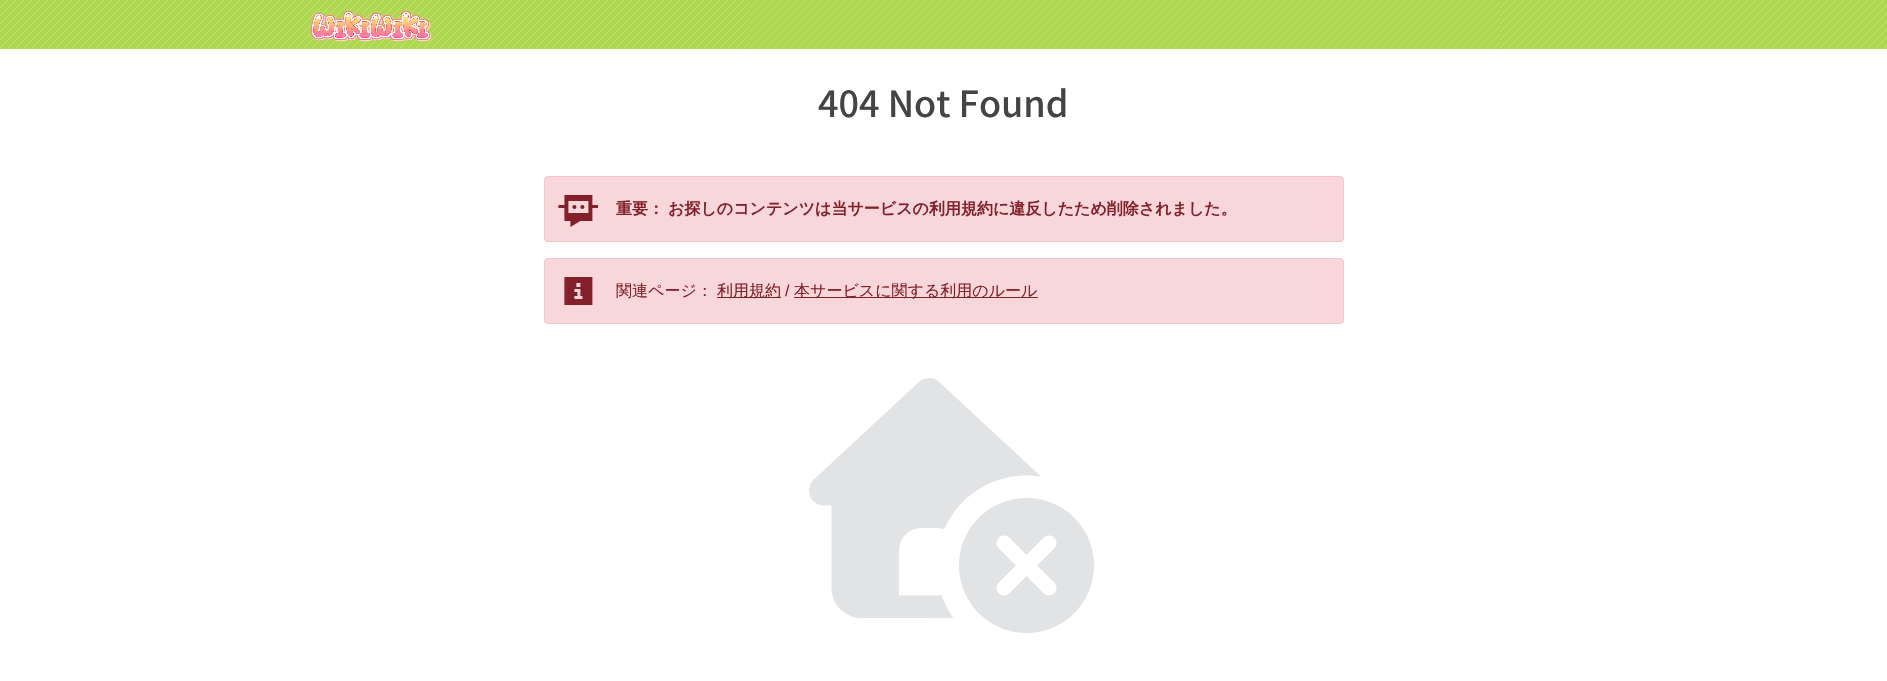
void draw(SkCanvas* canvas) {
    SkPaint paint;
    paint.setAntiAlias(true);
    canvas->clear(0xFFFFFFFF);
    canvas->drawImageRect(SkImages::DeferredFromEncodedData(SkData::MakeFromFileName("img1.png")), SkRect::MakeXYWH(0, 0, 1887, 49), SkSamplingOptions());
    canvas->drawImageRect(SkImages::DeferredFromEncodedData(SkData::MakeFromFileName("img2.png")), SkRect::MakeXYWH(311, 11, 120, 30), SkSamplingOptions());
    SkFont font1(fontMgr->matchFamilyStyle("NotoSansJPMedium", SkFontStyle(500, SkFontStyle::kNormal_Width, SkFontStyle::kUpright_Slant)), 36);
    font1.setSubpixel(true);
    paint.setColor(0xFF444444);
    canvas->drawString("404 Not Found", 818, 117, font1, paint);
    paint.setColor(0xFFF8D7DA);
    canvas->drawRoundRect(SkRect::MakeXYWH(544.5f, 176.5f, 799, 65), 3.5f, 3.5f, paint);
    paint.setStyle(SkPaint::kStroke_Style);
    paint.setStrokeWidth(1);
    paint.setColor(0xFFF5C2C7);
    canvas->drawRoundRect(SkRect::MakeXYWH(544.5f, 176.5f, 799, 65), 3.5f, 3.5f, paint);
    canvas->drawImageRect(SkImages::DeferredFromEncodedData(SkData::MakeFromFileName("img3.png")), SkRect::MakeXYWH(558, 195, 40, 32), SkSamplingOptions());
    SkFont font2(fontMgr->matchFamilyStyle("WenQuanYi Zen Hei", SkFontStyle::Bold()), 16);
    font2.setSubpixel(true);
    paint.setStyle(SkPaint::kFill_Style);
    paint.setColor(0xFF842029);
    canvas->drawString("重要：", 616, 214, font2, paint);
    canvas->drawString("お探しのコンテンツは当サービスの利用規約に違反したため削除されました。", 668, 214, font2, paint);
    paint.setColor(0xFFF8D7DA);
    canvas->drawRoundRect(SkRect::MakeXYWH(544.5f, 258.5f, 799, 65), 3.5f, 3.5f, paint);
    paint.setStyle(SkPaint::kStroke_Style);
    paint.setColor(0xFFF5C2C7);
    canvas->drawRoundRect(SkRect::MakeXYWH(544.5f, 258.5f, 799, 65), 3.5f, 3.5f, paint);
    canvas->drawImageRect(SkImages::DeferredFromEncodedData(SkData::MakeFromFileName("img4.png")), SkRect::MakeXYWH(564, 277, 29, 28), SkSamplingOptions());
    SkFont font3(fontMgr->matchFamilyStyle("WenQuanYi Zen Hei", SkFontStyle(500, SkFontStyle::kNormal_Width, SkFontStyle::kUpright_Slant)), 16);
    font3.setSubpixel(true);
    paint.setStyle(SkPaint::kFill_Style);
    paint.setColor(0xFF842029);
    canvas->drawString("関連ページ：", 616, 296, font3, paint);
    canvas->drawRect(SkRect::MakeXYWH(717, 297, 64, 1), paint);
    canvas->drawString("利用規約", 717, 296, font3, paint);
    SkFont font4(fontMgr->matchFamilyStyle("Liberation Sans", SkFontStyle::Normal()), 16);
    font4.setSubpixel(true);
    canvas->drawString("/", 785, 296, font4, paint);
    canvas->drawRect(SkRect::MakeXYWH(794, 297, 244, 1), paint);
    canvas->drawString("本サービスに関する利用のルール", 794, 296, font3, paint);
    canvas->drawImageRect(SkImages::DeferredFromEncodedData(SkData::MakeFromFileName("img5.png")), SkRect::MakeXYWH(809, 378, 285, 255), SkSamplingOptions());
}
